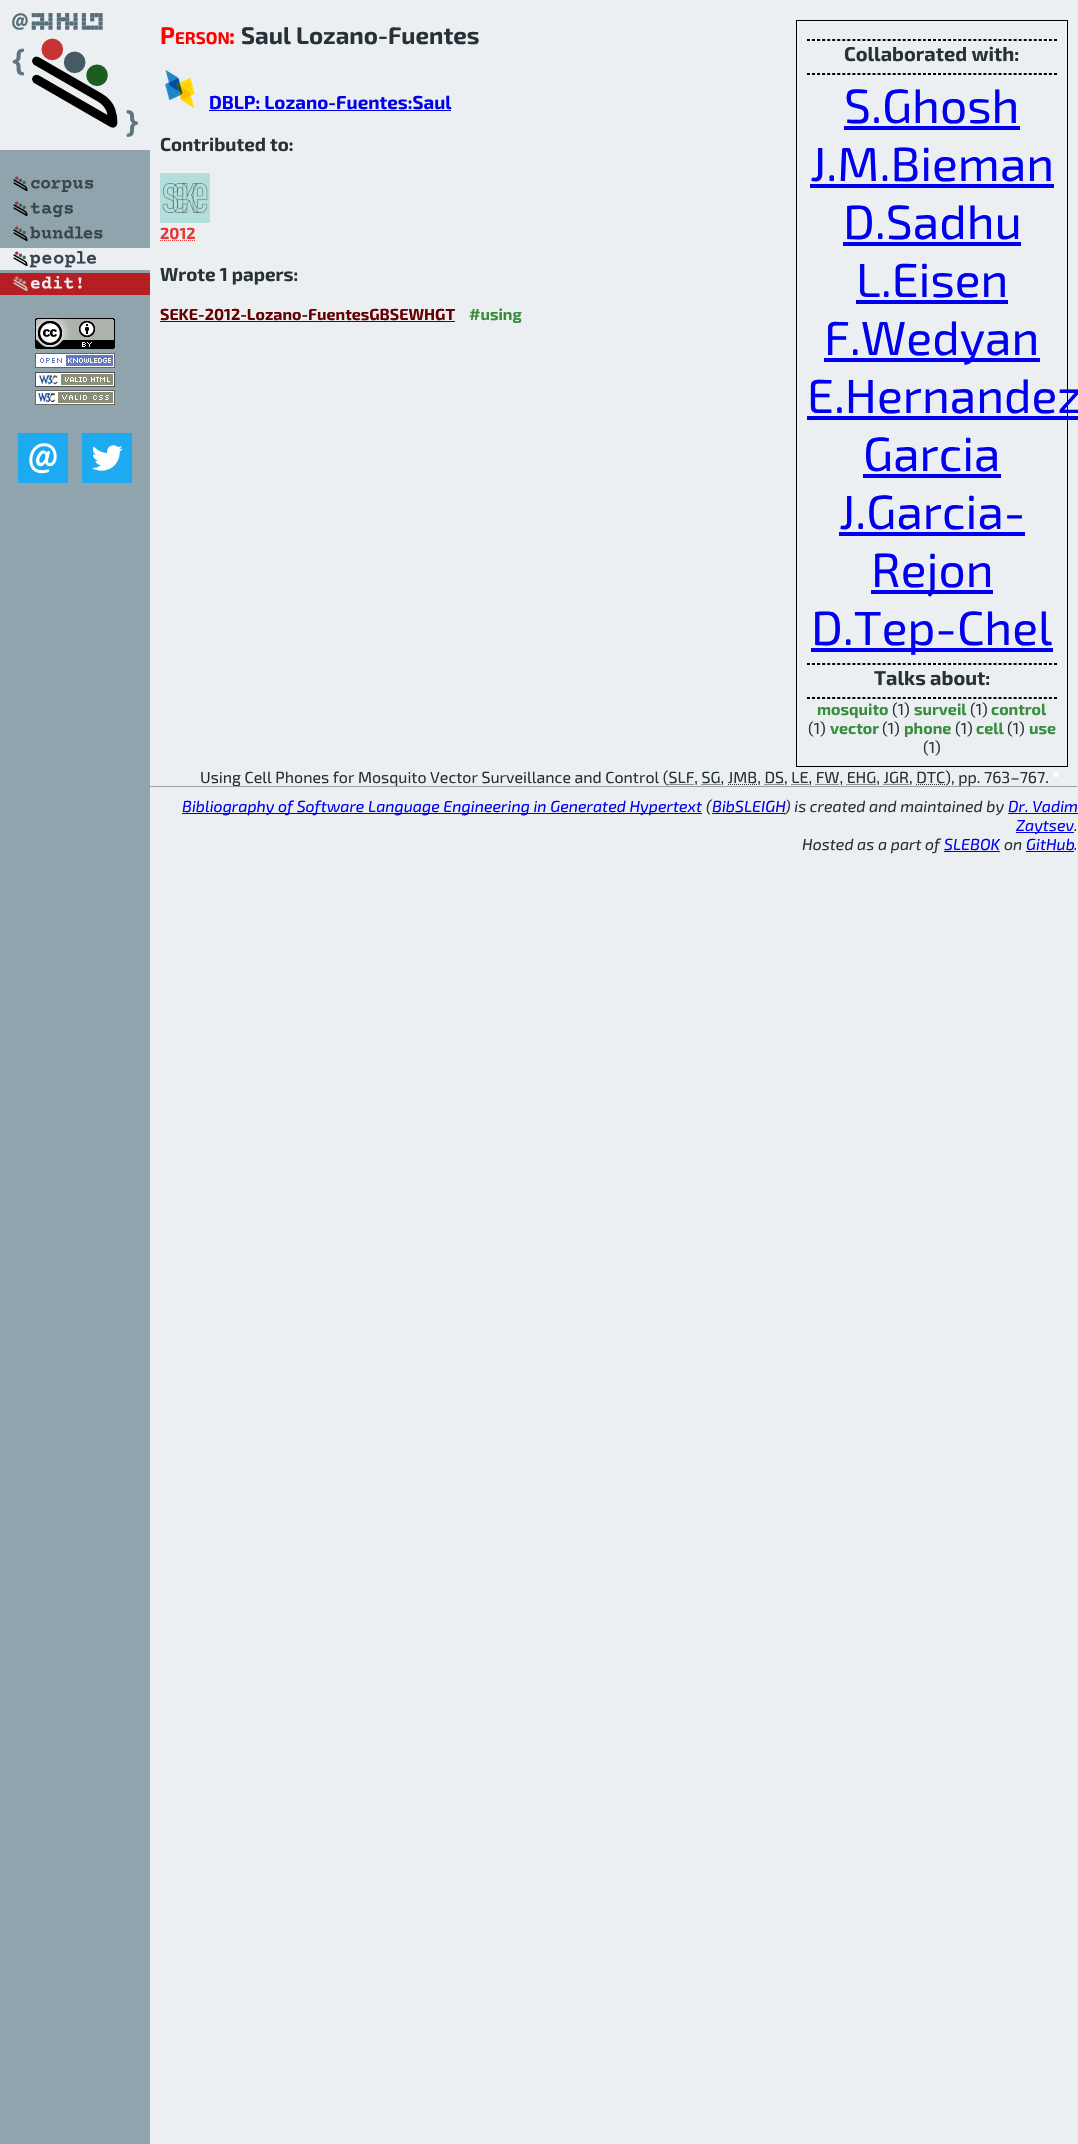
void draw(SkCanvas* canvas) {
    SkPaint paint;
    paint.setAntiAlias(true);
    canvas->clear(0xFFECEFF1);
    paint.setColor(0xFF90A4AE);
    canvas->drawRect(SkRect::MakeXYWH(0, 150, 150, 1994), paint);
    canvas->drawImageRect(SkImages::DeferredFromEncodedData(SkData::MakeFromFileName("img1.png")), SkRect::MakeXYWH(0, 0, 150, 150), SkSamplingOptions());
    canvas->drawImageRect(SkImages::DeferredFromEncodedData(SkData::MakeFromFileName("img2.png")), SkRect::MakeXYWH(13, 176, 81, 16), SkSamplingOptions());
    canvas->drawImageRect(SkImages::DeferredFromEncodedData(SkData::MakeFromFileName("img3.png")), SkRect::MakeXYWH(13, 201, 60, 17), SkSamplingOptions());
    canvas->drawImageRect(SkImages::DeferredFromEncodedData(SkData::MakeFromFileName("img4.png")), SkRect::MakeXYWH(13, 226, 90, 16), SkSamplingOptions());
    canvas->drawImageRect(SkImages::DeferredFromEncodedData(SkData::MakeFromFileName("img5.png")), SkRect::MakeXYWH(0, 248, 150, 22), SkSamplingOptions());
    canvas->drawImageRect(SkImages::DeferredFromEncodedData(SkData::MakeFromFileName("img6.png")), SkRect::MakeXYWH(0, 273, 150, 22), SkSamplingOptions());
    canvas->drawImageRect(SkImages::DeferredFromEncodedData(SkData::MakeFromFileName("img7.png")), SkRect::MakeXYWH(35, 318, 80, 31), SkSamplingOptions());
    canvas->drawImageRect(SkImages::DeferredFromEncodedData(SkData::MakeFromFileName("img8.png")), SkRect::MakeXYWH(35, 353, 80, 15), SkSamplingOptions());
    canvas->drawImageRect(SkImages::DeferredFromEncodedData(SkData::MakeFromFileName("img9.png")), SkRect::MakeXYWH(35, 372, 80, 15), SkSamplingOptions());
    canvas->drawImageRect(SkImages::DeferredFromEncodedData(SkData::MakeFromFileName("img10.png")), SkRect::MakeXYWH(35, 390, 80, 15), SkSamplingOptions());
    canvas->drawImageRect(SkImages::DeferredFromEncodedData(SkData::MakeFromFileName("img11.png")), SkRect::MakeXYWH(18, 433, 50, 50), SkSamplingOptions());
    canvas->drawImageRect(SkImages::DeferredFromEncodedData(SkData::MakeFromFileName("img12.png")), SkRect::MakeXYWH(82, 433, 50, 50), SkSamplingOptions());
    SkFont font1(fontMgr->matchFamilyStyle("Exo 2", SkFontStyle::Bold()), 24);
    font1.setSubpixel(true);
    paint.setColor(0xFFFF0000);
    canvas->drawString("P", 160, 44, font1, paint);
    SkFont font2(fontMgr->matchFamilyStyle("Exo 2", SkFontStyle::Bold()), 17);
    font2.setSubpixel(true);
    canvas->drawString("ERSON", 175, 44, font2, paint);
    canvas->drawString(":", 229, 44, font1, paint);
    paint.setColor(0xFF263238);
    canvas->drawString("Saul Lozano-Fuentes", 241, 44, font1, paint);
    canvas->drawImageRect(SkImages::DeferredFromEncodedData(SkData::MakeFromFileName("img13.png")), SkRect::MakeXYWH(165, 70, 30, 38), SkSamplingOptions());
    SkFont font3(fontMgr->matchFamilyStyle("Exo 2", SkFontStyle::Bold()), 18.75f);
    font3.setSubpixel(true);
    paint.setColor(0xFF0000EE);
    canvas->drawString("DBLP: Lozano-Fuentes:Saul", 209, 109, font3, paint);
    canvas->drawRect(SkRect::MakeXYWH(209, 110, 242, 1), paint);
    paint.setStyle(SkPaint::kStroke_Style);
    paint.setStrokeWidth(1);
    paint.setColor(0xFF000000);
    canvas->drawRect(SkRect::MakeXYWH(796.5f, 20.5f, 271, 746), paint);
    paint.setPathEffect(SkDashPathEffect::Make({{3, 2.04f}}, 0));
    canvas->drawPath(SkPathBuilder().moveTo(807, 39.5f).lineTo(1057, 39.5f).detach(), paint);
    paint.setPathEffect(nullptr);
    paint.setStyle(SkPaint::kFill_Style);
    canvas->drawRect(SkRect::MakeXYWH(1056, 39, 1, 2), paint);
    paint.setStyle(SkPaint::kStroke_Style);
    paint.setPathEffect(SkDashPathEffect::Make({{3, 2.04f}}, 0));
    canvas->drawPath(SkPathBuilder().moveTo(807, 40.5f).lineTo(1057, 40.5f).detach(), paint);
    paint.setPathEffect(nullptr);
    SkFont font4(fontMgr->matchFamilyStyle("Exo 2", SkFontStyle::Bold()), 20);
    font4.setSubpixel(true);
    paint.setStyle(SkPaint::kFill_Style);
    paint.setColor(0xFF263238);
    canvas->drawString("Collaborated with:", 844, 61, font4, paint);
    paint.setStyle(SkPaint::kStroke_Style);
    paint.setColor(0xFF000000);
    paint.setPathEffect(SkDashPathEffect::Make({{3, 2.04f}}, 0));
    canvas->drawPath(SkPathBuilder().moveTo(807, 73.5f).lineTo(1057, 73.5f).detach(), paint);
    paint.setPathEffect(nullptr);
    paint.setStyle(SkPaint::kFill_Style);
    canvas->drawRect(SkRect::MakeXYWH(1056, 73, 1, 2), paint);
    paint.setStyle(SkPaint::kStroke_Style);
    paint.setPathEffect(SkDashPathEffect::Make({{3, 2.04f}}, 0));
    canvas->drawPath(SkPathBuilder().moveTo(807, 74.5f).lineTo(1057, 74.5f).detach(), paint);
    paint.setPathEffect(nullptr);
    SkFont font5(fontMgr->matchFamilyStyle("Exo 2", SkFontStyle::Normal()), 48);
    font5.setSubpixel(true);
    paint.setStyle(SkPaint::kFill_Style);
    paint.setColor(0xFF0000EE);
    canvas->drawString("S.Ghosh", 844, 123, font5, paint);
    canvas->drawRect(SkRect::MakeXYWH(844, 126, 176, 4), paint);
    canvas->drawString("J.M.Bieman", 810, 181, font5, paint);
    canvas->drawRect(SkRect::MakeXYWH(810, 184, 244, 4), paint);
    canvas->drawString("D.Sadhu", 843, 239, font5, paint);
    canvas->drawRect(SkRect::MakeXYWH(843, 242, 178, 4), paint);
    canvas->drawString("L.Eisen", 856, 297, font5, paint);
    canvas->drawRect(SkRect::MakeXYWH(856, 300, 152, 4), paint);
    canvas->drawRect(SkRect::MakeXYWH(824, 358, 216, 4), paint);
    canvas->drawString("F.Wedyan", 824, 355, font5, paint);
    canvas->drawString("E.Hernandez", 807, 413, font5, paint);
    canvas->drawRect(SkRect::MakeXYWH(807, 416, 271, 4), paint);
    canvas->drawString("Garcia", 863, 471, font5, paint);
    canvas->drawRect(SkRect::MakeXYWH(863, 474, 138, 4), paint);
    canvas->drawString("J.Garcia-", 839, 529, font5, paint);
    canvas->drawRect(SkRect::MakeXYWH(839, 532, 186, 4), paint);
    canvas->drawRect(SkRect::MakeXYWH(871, 590, 122, 4), paint);
    canvas->drawString("Rejon", 871, 587, font5, paint);
    canvas->drawRect(SkRect::MakeXYWH(811, 648, 242, 4), paint);
    canvas->drawString("D.Tep-Chel", 811, 645, font5, paint);
    paint.setStyle(SkPaint::kStroke_Style);
    paint.setColor(0xFF000000);
    paint.setPathEffect(SkDashPathEffect::Make({{3, 2.04f}}, 0));
    canvas->drawPath(SkPathBuilder().moveTo(807, 663.5f).lineTo(1057, 663.5f).detach(), paint);
    paint.setPathEffect(nullptr);
    paint.setStyle(SkPaint::kFill_Style);
    canvas->drawRect(SkRect::MakeXYWH(1056, 663, 1, 2), paint);
    paint.setStyle(SkPaint::kStroke_Style);
    paint.setPathEffect(SkDashPathEffect::Make({{3, 2.04f}}, 0));
    canvas->drawPath(SkPathBuilder().moveTo(807, 664.5f).lineTo(1057, 664.5f).detach(), paint);
    paint.setPathEffect(nullptr);
    paint.setStyle(SkPaint::kFill_Style);
    paint.setColor(0xFF263238);
    canvas->drawString("Talks about:", 874, 685, font4, paint);
    paint.setStyle(SkPaint::kStroke_Style);
    paint.setColor(0xFF000000);
    paint.setPathEffect(SkDashPathEffect::Make({{3, 2.04f}}, 0));
    canvas->drawPath(SkPathBuilder().moveTo(807, 697.5f).lineTo(1057, 697.5f).detach(), paint);
    paint.setPathEffect(nullptr);
    paint.setStyle(SkPaint::kFill_Style);
    canvas->drawRect(SkRect::MakeXYWH(1056, 697, 1, 2), paint);
    paint.setStyle(SkPaint::kStroke_Style);
    paint.setPathEffect(SkDashPathEffect::Make({{3, 2.04f}}, 0));
    canvas->drawPath(SkPathBuilder().moveTo(807, 698.5f).lineTo(1057, 698.5f).detach(), paint);
    paint.setPathEffect(nullptr);
    SkFont font6(fontMgr->matchFamilyStyle("Exo 2", SkFontStyle::Bold()), 16);
    font6.setSubpixel(true);
    paint.setStyle(SkPaint::kFill_Style);
    paint.setColor(0xFF388E3C);
    canvas->drawString("mosquito", 817, 715, font6, paint);
    SkFont font7(fontMgr->matchFamilyStyle("Exo 2", SkFontStyle::Normal()), 16);
    font7.setSubpixel(true);
    paint.setColor(0xFF263238);
    canvas->drawString("(1)", 892, 715, font7, paint);
    paint.setColor(0xFF388E3C);
    canvas->drawString("surveil", 914, 715, font6, paint);
    paint.setColor(0xFF263238);
    canvas->drawString("(1)", 970, 715, font7, paint);
    paint.setColor(0xFF388E3C);
    canvas->drawString("control", 991, 715, font6, paint);
    paint.setColor(0xFF263238);
    canvas->drawString("(1)", 808, 734, font7, paint);
    paint.setColor(0xFF388E3C);
    canvas->drawString("vector", 830, 734, font6, paint);
    paint.setColor(0xFF263238);
    canvas->drawString("(1)", 882, 734, font7, paint);
    paint.setColor(0xFF388E3C);
    canvas->drawString("phone", 904, 734, font6, paint);
    paint.setColor(0xFF263238);
    canvas->drawString("(1)", 955, 734, font7, paint);
    paint.setColor(0xFF388E3C);
    canvas->drawString("cell", 976, 734, font6, paint);
    paint.setColor(0xFF263238);
    canvas->drawString("(1)", 1007, 734, font7, paint);
    paint.setColor(0xFF388E3C);
    canvas->drawString("use", 1029, 734, font6, paint);
    paint.setColor(0xFF263238);
    canvas->drawString("(1)", 923, 753, font7, paint);
    canvas->drawString("Contributed to:", 160, 151, font3, paint);
    canvas->drawImageRect(SkImages::DeferredFromEncodedData(SkData::MakeFromFileName("img14.png")), SkRect::MakeXYWH(160, 173, 50, 50), SkSamplingOptions());
    paint.setColor(0xFFE53935);
    canvas->drawString("2012", 160, 239, font6, paint);
    paint.setStyle(SkPaint::kStroke_Style);
    paint.setPathEffect(SkDashPathEffect::Make({{1, 1}}, 0));
    canvas->drawPath(SkPathBuilder().moveTo(160, 240.5f).lineTo(195.5f, 240.5f).detach(), paint);
    paint.setPathEffect(nullptr);
    paint.setStyle(SkPaint::kFill_Style);
    paint.setColor(0xFF263238);
    canvas->drawString("Wrote 1 papers:", 160, 281, font3, paint);
    paint.setColor(0xFF660000);
    canvas->drawString("SEKE-2012-Lozano-FuentesGBSEWHGT", 160, 320, font6, paint);
    canvas->drawRect(SkRect::MakeXYWH(160, 321, 295, 1), paint);
    paint.setColor(0xFF388E3C);
    canvas->drawString("#using", 469, 320, font6, paint);
    paint.setColor(0xFF263238);
    canvas->drawString("Using Cell Phones for Mosquito Vector Surveillance and Control (SLF, SG, JMB, DS, LE, FW, EHG, JGR, DTC), pp. 763–767.", 200, 783, font7, paint);
    paint.setStyle(SkPaint::kStroke_Style);
    paint.setPathEffect(SkDashPathEffect::Make({{1, 1}}, 0));
    canvas->drawPath(SkPathBuilder().moveTo(668.5f, 784.5f).lineTo(694.5f, 784.5f).moveTo(701.5f, 784.5f).lineTo(720.5f, 784.5f).detach(), paint);
    paint.setPathEffect(nullptr);
    paint.setPathEffect(SkDashPathEffect::Make({{1, 1}}, 0));
    canvas->drawPath(SkPathBuilder().moveTo(728, 784.5f).lineTo(757, 784.5f).moveTo(764.5f, 784.5f).lineTo(784, 784.5f).detach(), paint);
    paint.setPathEffect(nullptr);
    paint.setPathEffect(SkDashPathEffect::Make({{1, 1}}, 0));
    canvas->drawPath(SkPathBuilder().moveTo(791.5f, 784.5f).lineTo(808.5f, 784.5f).moveTo(815.5f, 784.5f).lineTo(839.5f, 784.5f).detach(), paint);
    paint.setPathEffect(nullptr);
    paint.setPathEffect(SkDashPathEffect::Make({{1, 1}}, 0));
    canvas->drawPath(SkPathBuilder().moveTo(846.5f, 784.5f).lineTo(876.5f, 784.5f).moveTo(883.5f, 784.5f).lineTo(909, 784.5f).detach(), paint);
    paint.setPathEffect(nullptr);
    paint.setPathEffect(SkDashPathEffect::Make({{1, 1}}, 0));
    canvas->drawPath(SkPathBuilder().moveTo(916, 784.5f).lineTo(945.5f, 784.5f).detach(), paint);
    paint.setPathEffect(nullptr);
    paint.setStyle(SkPaint::kFill_Style);
    paint.setColor(0xFFFFFFFF);
    canvas->drawRect(SkRect::MakeXYWH(1054, 772, 4, 5), paint);
    paint.setColor(0xFF9F9F9F);
    canvas->drawRect(SkRect::MakeXYWH(150, 786, 928, 1), paint);
    paint.setColor(0xFFEEEEEE);
    canvas->drawRect(SkRect::MakeXYWH(1077, 786, 1, 2), paint);
    canvas->drawRect(SkRect::MakeXYWH(150, 787, 928, 1), paint);
    paint.setColor(0xFF0000EE);
    canvas->drawRect(SkRect::MakeXYWH(182, 813, 520, 1), paint);
    SkFont font8(fontMgr->matchFamilyStyle("Exo 2", SkFontStyle::Italic()), 16);
    font8.setSubpixel(true);
    canvas->drawString("Bibliography of Software Language Engineering in Generated Hypertext", 182, 812, font8, paint);
    paint.setColor(0xFF263238);
    canvas->drawString("(", 706, 812, font8, paint);
    paint.setColor(0xFF0000EE);
    canvas->drawString("BibSLEIGH", 712, 812, font8, paint);
    canvas->drawRect(SkRect::MakeXYWH(712, 813, 73, 1), paint);
    paint.setColor(0xFF263238);
    canvas->drawString(") is created and maintained by", 785, 812, font8, paint);
    paint.setColor(0xFF0000EE);
    canvas->drawString("Dr. Vadim", 1008, 812, font8, paint);
    canvas->drawRect(SkRect::MakeXYWH(1008, 813, 70, 1), paint);
    canvas->drawRect(SkRect::MakeXYWH(1016, 832, 58, 1), paint);
    canvas->drawString("Zaytsev", 1016, 831, font8, paint);
    paint.setColor(0xFF263238);
    canvas->drawString(".", 1074, 831, font8, paint);
    canvas->drawString("Hosted as a part of", 802, 850, font8, paint);
    paint.setColor(0xFF0000EE);
    canvas->drawRect(SkRect::MakeXYWH(944, 851, 56, 1), paint);
    canvas->drawString("SLEBOK", 944, 850, font8, paint);
    paint.setColor(0xFF263238);
    canvas->drawString("on", 1004, 850, font8, paint);
    paint.setColor(0xFF0000EE);
    canvas->drawString("GitHub", 1026, 850, font8, paint);
    paint.setColor(0xFF263238);
    canvas->drawString(".", 1074, 850, font8, paint);
    paint.setColor(0xFF0000EE);
    canvas->drawRect(SkRect::MakeXYWH(1026, 851, 48, 1), paint);
}
